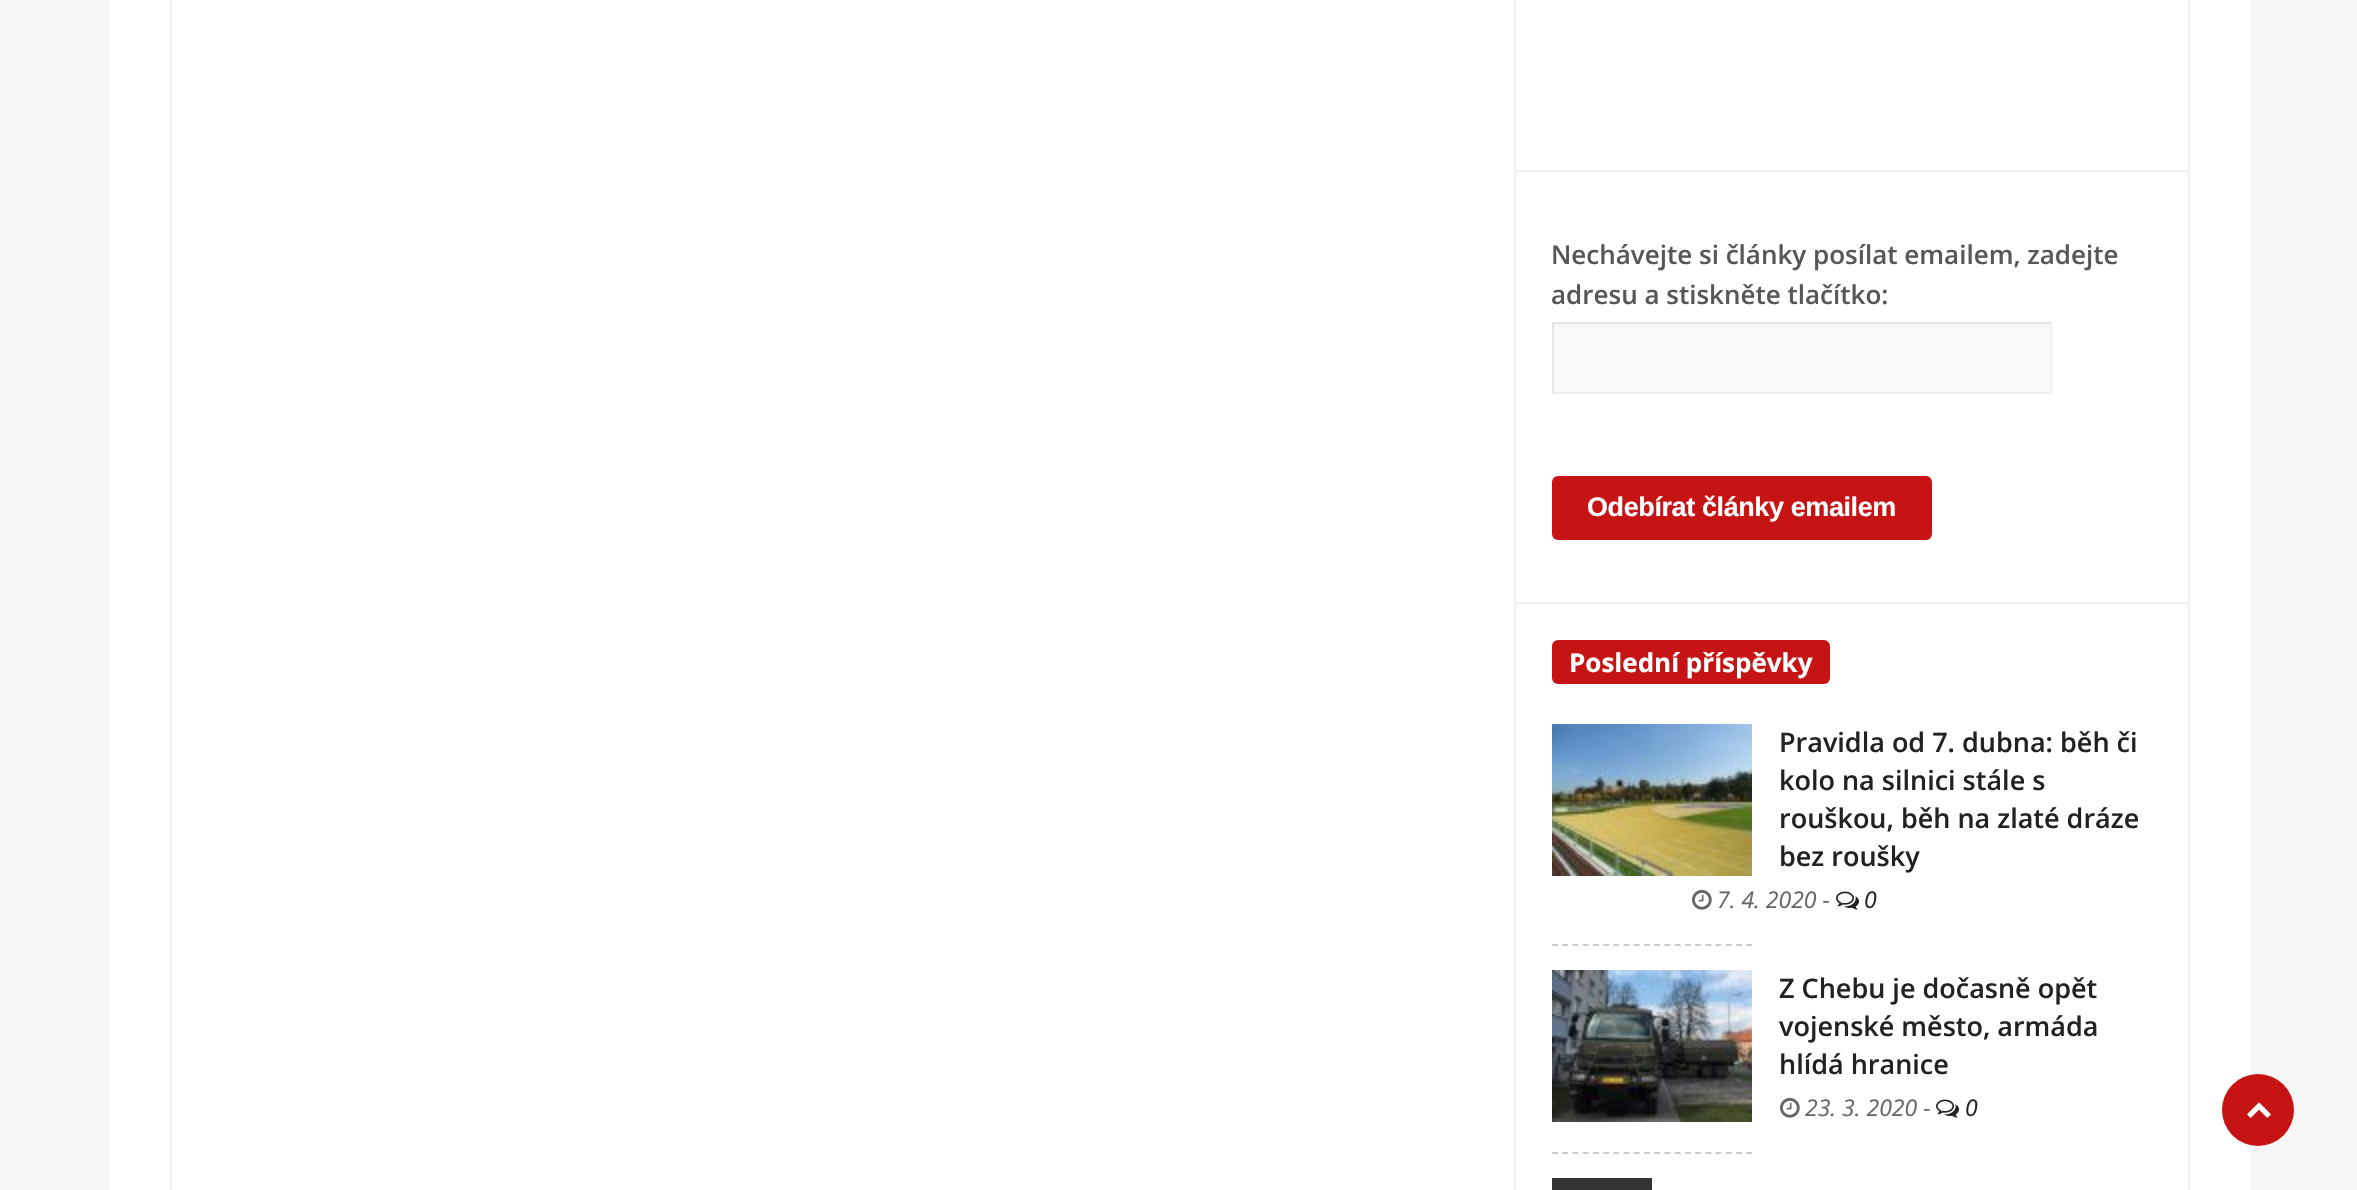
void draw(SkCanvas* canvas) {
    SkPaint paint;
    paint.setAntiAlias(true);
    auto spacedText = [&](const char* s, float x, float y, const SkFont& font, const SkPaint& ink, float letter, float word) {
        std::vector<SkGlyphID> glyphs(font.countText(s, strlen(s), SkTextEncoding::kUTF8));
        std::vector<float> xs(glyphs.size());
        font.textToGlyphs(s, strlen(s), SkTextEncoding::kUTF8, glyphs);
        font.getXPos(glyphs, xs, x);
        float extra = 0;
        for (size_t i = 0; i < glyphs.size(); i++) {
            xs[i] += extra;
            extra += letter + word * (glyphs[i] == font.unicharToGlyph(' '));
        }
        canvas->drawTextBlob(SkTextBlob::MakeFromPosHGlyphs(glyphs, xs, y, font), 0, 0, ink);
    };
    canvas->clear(0xFFF6F6F6);
    paint.setColor(0xFFFFFFFF);
    canvas->drawRect(SkRect::MakeXYWH(110, 0, 2140, 1190), paint);
    paint.setColor(0xFFEFEFEF);
    canvas->drawRect(SkRect::MakeXYWH(2188, 0, 2, 1190), paint);
    canvas->drawRect(SkRect::MakeXYWH(170, 0, 2, 1190), paint);
    canvas->drawRect(SkRect::MakeXYWH(1514, 0, 2, 1190), paint);
    canvas->drawRect(SkRect::MakeXYWH(1516, 170, 672, 2), paint);
    canvas->drawRect(SkRect::MakeXYWH(1516, 602, 672, 2), paint);
    SkFont font1(fontMgr->matchFamilyStyle("Open Sans", SkFontStyle(600, SkFontStyle::kNormal_Width, SkFontStyle::kUpright_Slant)), 26);
    font1.setSubpixel(true);
    paint.setColor(0xFF575757);
    canvas->drawString("Nechávejte si články posílat emailem, zadejte", 1551, 264, font1, paint);
    canvas->drawString("adresu a stiskněte tlačítko:", 1551, 304, font1, paint);
    paint.setColor(0xFFF9F9F9);
    canvas->drawRect(SkRect::MakeXYWH(1554, 324, 496, 68), paint);
    paint.setColor(0xFFE4E4E4);
    canvas->drawRect(SkRect::MakeXYWH(1552, 322, 500, 2), paint);
    paint.setColor(0xFFEFEFEF);
    canvas->drawRect(SkRect::MakeXYWH(2050, 322, 2, 72), paint);
    canvas->drawRect(SkRect::MakeXYWH(1552, 392, 500, 2), paint);
    paint.setColor(0xFFE4E4E4);
    canvas->drawRect(SkRect::MakeXYWH(1552, 322, 2, 72), paint);
    paint.setColor(0xFFC61313);
    canvas->drawRoundRect(SkRect::MakeXYWH(1552, 476, 380, 64), 6, 6, paint);
    SkFont font2(fontMgr->matchFamilyStyle("Liberation Sans", SkFontStyle::Bold()), 27);
    font2.setSubpixel(true);
    paint.setColor(0xFFFFFFFF);
    spacedText("Odebírat články emailem", 1587, 516, font2, paint, -0.4f, 0);
    paint.setColor(0xFFC61313);
    canvas->drawRoundRect(SkRect::MakeXYWH(1552, 640, 278, 44), 6, 6, paint);
    SkFont font3(fontMgr->matchFamilyStyle("Open Sans", SkFontStyle::Bold()), 26);
    font3.setSubpixel(true);
    paint.setColor(0xFFFFFFFF);
    canvas->drawString("Poslední příspěvky", 1569, 672, font3, paint);
    canvas->drawImageRect(SkImages::DeferredFromEncodedData(SkData::MakeFromFileName("img1.png")), SkRect::MakeXYWH(1552, 724, 200, 152), SkSamplingOptions());
    SkFont font4(fontMgr->matchFamilyStyle("Open Sans", SkFontStyle(600, SkFontStyle::kNormal_Width, SkFontStyle::kUpright_Slant)), 27);
    font4.setSubpixel(true);
    paint.setColor(0xFF222222);
    canvas->drawString("Pravidla od 7. dubna: běh či", 1779, 752, font4, paint);
    canvas->drawString("kolo na silnici stále s", 1779, 790, font4, paint);
    canvas->drawString("rouškou, běh na zlaté dráze", 1779, 828, font4, paint);
    canvas->drawString("bez roušky", 1779, 866, font4, paint);
    canvas->drawImageRect(SkImages::DeferredFromEncodedData(SkData::MakeFromFileName("img2.png")), SkRect::MakeXYWH(1692, 889, 20, 21), SkSamplingOptions());
    SkFont font5(fontMgr->matchFamilyStyle("Open Sans", SkFontStyle::Italic()), 23);
    font5.setSubpixel(true);
    paint.setColor(0xFF666666);
    canvas->drawString("7. 4. 2020 -", 1717, 908, font5, paint);
    canvas->drawImageRect(SkImages::DeferredFromEncodedData(SkData::MakeFromFileName("img3.png")), SkRect::MakeXYWH(1836, 891, 23, 19), SkSamplingOptions());
    paint.setColor(0xFF222222);
    canvas->drawString("0", 1864, 908, font5, paint);
    paint.setStyle(SkPaint::kStroke_Style);
    paint.setStrokeWidth(2);
    paint.setColor(0xFFCCCCCC);
    paint.setPathEffect(SkDashPathEffect::Make({{6, 4.22f}}, 0));
    canvas->drawPath(SkPathBuilder().moveTo(1552, 945).lineTo(1752, 945).detach(), paint);
    paint.setPathEffect(nullptr);
    canvas->drawImageRect(SkImages::DeferredFromEncodedData(SkData::MakeFromFileName("img4.png")), SkRect::MakeXYWH(1552, 970, 200, 152), SkSamplingOptions());
    paint.setStyle(SkPaint::kFill_Style);
    paint.setColor(0xFF222222);
    canvas->drawString("Z Chebu je dočasně opět", 1779, 998, font4, paint);
    canvas->drawString("vojenské město, armáda", 1779, 1036, font4, paint);
    canvas->drawString("hlídá hranice", 1779, 1074, font4, paint);
    canvas->drawImageRect(SkImages::DeferredFromEncodedData(SkData::MakeFromFileName("img2.png")), SkRect::MakeXYWH(1780, 1097, 20, 21), SkSamplingOptions());
    paint.setColor(0xFF666666);
    canvas->drawString("23. 3. 2020 -", 1805, 1116, font5, paint);
    canvas->drawImageRect(SkImages::DeferredFromEncodedData(SkData::MakeFromFileName("img3.png")), SkRect::MakeXYWH(1936, 1099, 23, 19), SkSamplingOptions());
    paint.setColor(0xFF222222);
    canvas->drawString("0", 1965, 1116, font5, paint);
    paint.setStyle(SkPaint::kStroke_Style);
    paint.setColor(0xFFCCCCCC);
    paint.setPathEffect(SkDashPathEffect::Make({{6, 4.22f}}, 0));
    canvas->drawPath(SkPathBuilder().moveTo(1552, 1153).lineTo(1752, 1153).detach(), paint);
    paint.setPathEffect(nullptr);
    paint.setStyle(SkPaint::kFill_Style);
    paint.setColor(0xFF333333);
    canvas->drawRect(SkRect::MakeXYWH(1552, 1178, 100, 12), paint);
    paint.setColor(0xFFC61313);
    canvas->drawCircle(2258, 1110, 36, paint);
    canvas->drawImageRect(SkImages::DeferredFromEncodedData(SkData::MakeFromFileName("img5.png")), SkRect::MakeXYWH(2247, 1102, 24, 16), SkSamplingOptions());
}
